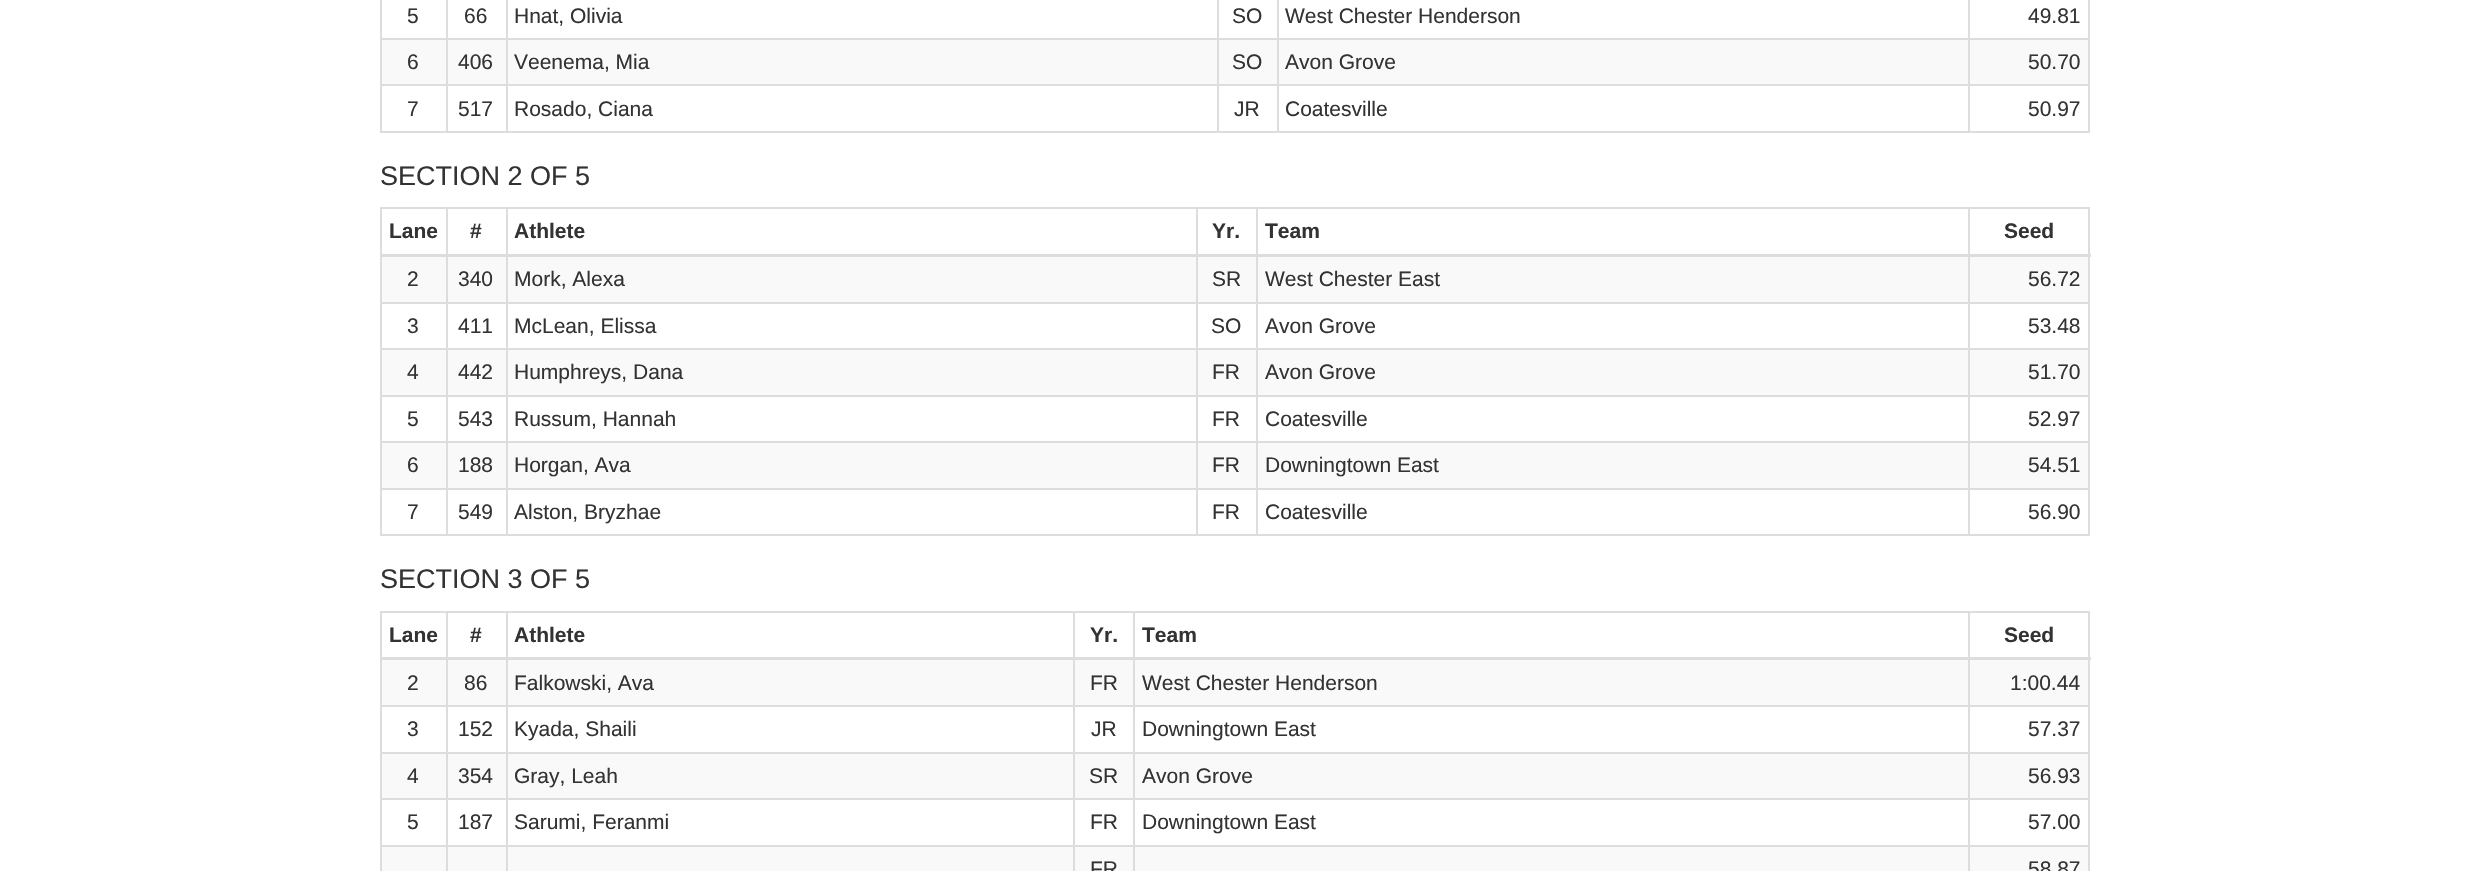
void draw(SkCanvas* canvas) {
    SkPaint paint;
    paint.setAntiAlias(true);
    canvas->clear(0xFFFFFFFF);
    paint.setColor(0xFFDDDDDD);
    canvas->drawRect(SkRect::MakeXYWH(2088, 0, 2, 132), paint);
    canvas->drawRect(SkRect::MakeXYWH(380, 131, 1710, 2), paint);
    canvas->drawRect(SkRect::MakeXYWH(380, 0, 2, 132), paint);
    SkFont font1(fontMgr->matchFamilyStyle("Liberation Sans", SkFontStyle::Normal()), 21);
    font1.setSubpixel(true);
    paint.setColor(0xFF333333);
    canvas->drawString("5", 407, 23, font1, paint);
    paint.setColor(0xFFDDDDDD);
    canvas->drawRect(SkRect::MakeXYWH(1968, 38, 122, 2), paint);
    canvas->drawRect(SkRect::MakeXYWH(1968, 84, 122, 2), paint);
    canvas->drawRect(SkRect::MakeXYWH(1968, 84, 2, 48), paint);
    canvas->drawRect(SkRect::MakeXYWH(1277, 84, 693, 2), paint);
    canvas->drawRect(SkRect::MakeXYWH(1968, 38, 2, 48), paint);
    canvas->drawRect(SkRect::MakeXYWH(1277, 38, 693, 2), paint);
    canvas->drawRect(SkRect::MakeXYWH(1277, 84, 2, 48), paint);
    canvas->drawRect(SkRect::MakeXYWH(1217, 84, 61, 2), paint);
    canvas->drawRect(SkRect::MakeXYWH(1277, 38, 2, 48), paint);
    canvas->drawRect(SkRect::MakeXYWH(1217, 38, 61, 2), paint);
    canvas->drawRect(SkRect::MakeXYWH(1217, 84, 2, 48), paint);
    canvas->drawRect(SkRect::MakeXYWH(506, 84, 712, 2), paint);
    canvas->drawRect(SkRect::MakeXYWH(1217, 38, 2, 48), paint);
    canvas->drawRect(SkRect::MakeXYWH(506, 38, 712, 2), paint);
    canvas->drawRect(SkRect::MakeXYWH(506, 84, 2, 48), paint);
    canvas->drawRect(SkRect::MakeXYWH(446, 84, 61, 2), paint);
    canvas->drawRect(SkRect::MakeXYWH(506, 38, 2, 48), paint);
    canvas->drawRect(SkRect::MakeXYWH(446, 38, 61, 2), paint);
    canvas->drawRect(SkRect::MakeXYWH(446, 84, 2, 48), paint);
    canvas->drawRect(SkRect::MakeXYWH(380, 84, 67, 2), paint);
    canvas->drawRect(SkRect::MakeXYWH(446, 38, 2, 48), paint);
    canvas->drawRect(SkRect::MakeXYWH(380, 38, 67, 2), paint);
    canvas->drawRect(SkRect::MakeXYWH(446, 0, 2, 39), paint);
    paint.setColor(0xFF333333);
    canvas->drawString("66", 464, 23, font1, paint);
    paint.setColor(0xFFDDDDDD);
    canvas->drawRect(SkRect::MakeXYWH(506, 0, 2, 39), paint);
    paint.setColor(0xFF333333);
    canvas->drawString("Hnat, Olivia", 514, 23, font1, paint);
    paint.setColor(0xFFDDDDDD);
    canvas->drawRect(SkRect::MakeXYWH(1217, 0, 2, 39), paint);
    paint.setColor(0xFF333333);
    canvas->drawString("SO", 1232, 23, font1, paint);
    paint.setColor(0xFFDDDDDD);
    canvas->drawRect(SkRect::MakeXYWH(1277, 0, 2, 39), paint);
    paint.setColor(0xFF333333);
    canvas->drawString("West Chester Henderson", 1285, 23, font1, paint);
    paint.setColor(0xFFDDDDDD);
    canvas->drawRect(SkRect::MakeXYWH(1968, 0, 2, 39), paint);
    paint.setColor(0xFF333333);
    canvas->drawString("49.81", 2028, 23, font1, paint);
    paint.setColor(0xFFF9F9F9);
    canvas->drawRect(SkRect::MakeXYWH(382, 40, 64, 44), paint);
    paint.setColor(0xFF333333);
    canvas->drawString("6", 407, 69, font1, paint);
    paint.setColor(0xFFF9F9F9);
    canvas->drawRect(SkRect::MakeXYWH(448, 40, 58, 44), paint);
    paint.setColor(0xFF333333);
    canvas->drawString("406", 458, 69, font1, paint);
    paint.setColor(0xFFF9F9F9);
    canvas->drawRect(SkRect::MakeXYWH(508, 40, 709, 44), paint);
    paint.setColor(0xFF333333);
    canvas->drawString("Veenema, Mia", 514, 69, font1, paint);
    paint.setColor(0xFFF9F9F9);
    canvas->drawRect(SkRect::MakeXYWH(1219, 40, 58, 44), paint);
    paint.setColor(0xFF333333);
    canvas->drawString("SO", 1232, 69, font1, paint);
    paint.setColor(0xFFF9F9F9);
    canvas->drawRect(SkRect::MakeXYWH(1279, 40, 689, 44), paint);
    paint.setColor(0xFF333333);
    canvas->drawString("Avon Grove", 1285, 69, font1, paint);
    paint.setColor(0xFFF9F9F9);
    canvas->drawRect(SkRect::MakeXYWH(1970, 40, 118, 44), paint);
    paint.setColor(0xFF333333);
    canvas->drawString("50.70", 2028, 69, font1, paint);
    canvas->drawString("7", 407, 116, font1, paint);
    canvas->drawString("517", 458, 116, font1, paint);
    canvas->drawString("Rosado, Ciana", 514, 116, font1, paint);
    canvas->drawString("JR", 1234, 116, font1, paint);
    canvas->drawString("Coatesville", 1285, 116, font1, paint);
    canvas->drawString("50.97", 2028, 116, font1, paint);
    SkFont font2(fontMgr->matchFamilyStyle("Liberation Sans", SkFontStyle::Normal()), 27);
    font2.setSubpixel(true);
    canvas->drawString("SECTION 2 OF 5", 380, 185, font2, paint);
    paint.setColor(0xFFDDDDDD);
    canvas->drawRect(SkRect::MakeXYWH(380, 207, 1710, 2), paint);
    canvas->drawRect(SkRect::MakeXYWH(2088, 207, 2, 329), paint);
    canvas->drawRect(SkRect::MakeXYWH(380, 534, 1710, 2), paint);
    canvas->drawRect(SkRect::MakeXYWH(380, 207, 2, 329), paint);
    SkFont font3(fontMgr->matchFamilyStyle("Liberation Sans", SkFontStyle::Bold()), 21);
    font3.setSubpixel(true);
    paint.setColor(0xFF333333);
    canvas->drawString("Lane", 389, 238, font3, paint);
    canvas->drawString("#", 470, 238, font3, paint);
    canvas->drawString("Athlete", 514, 238, font3, paint);
    canvas->drawString("Yr.", 1212, 238, font3, paint);
    canvas->drawString("Team", 1265, 238, font3, paint);
    paint.setColor(0xFFDDDDDD);
    canvas->drawRect(SkRect::MakeXYWH(1968, 302, 122, 2), paint);
    canvas->drawRect(SkRect::MakeXYWH(1968, 348, 122, 2), paint);
    canvas->drawRect(SkRect::MakeXYWH(1968, 395, 122, 2), paint);
    canvas->drawRect(SkRect::MakeXYWH(1968, 441, 122, 2), paint);
    canvas->drawRect(SkRect::MakeXYWH(1968, 488, 122, 2), paint);
    canvas->drawRect(SkRect::MakeXYWH(1968, 488, 2, 48), paint);
    canvas->drawRect(SkRect::MakeXYWH(1256, 488, 714, 2), paint);
    canvas->drawRect(SkRect::MakeXYWH(1968, 441, 2, 48), paint);
    canvas->drawRect(SkRect::MakeXYWH(1256, 441, 714, 2), paint);
    canvas->drawRect(SkRect::MakeXYWH(1968, 395, 2, 48), paint);
    canvas->drawRect(SkRect::MakeXYWH(1256, 395, 714, 2), paint);
    canvas->drawRect(SkRect::MakeXYWH(1968, 348, 2, 48), paint);
    canvas->drawRect(SkRect::MakeXYWH(1256, 348, 714, 2), paint);
    canvas->drawRect(SkRect::MakeXYWH(1968, 302, 2, 48), paint);
    canvas->drawRect(SkRect::MakeXYWH(1256, 302, 714, 2), paint);
    canvas->drawRect(SkRect::MakeXYWH(1256, 488, 2, 48), paint);
    canvas->drawRect(SkRect::MakeXYWH(1196, 488, 61, 2), paint);
    canvas->drawRect(SkRect::MakeXYWH(1256, 441, 2, 48), paint);
    canvas->drawRect(SkRect::MakeXYWH(1196, 441, 61, 2), paint);
    canvas->drawRect(SkRect::MakeXYWH(1256, 395, 2, 48), paint);
    canvas->drawRect(SkRect::MakeXYWH(1196, 395, 61, 2), paint);
    canvas->drawRect(SkRect::MakeXYWH(1256, 348, 2, 48), paint);
    canvas->drawRect(SkRect::MakeXYWH(1196, 348, 61, 2), paint);
    canvas->drawRect(SkRect::MakeXYWH(1256, 302, 2, 48), paint);
    canvas->drawRect(SkRect::MakeXYWH(1196, 302, 61, 2), paint);
    canvas->drawRect(SkRect::MakeXYWH(1196, 488, 2, 48), paint);
    canvas->drawRect(SkRect::MakeXYWH(506, 488, 691, 2), paint);
    canvas->drawRect(SkRect::MakeXYWH(1196, 441, 2, 48), paint);
    canvas->drawRect(SkRect::MakeXYWH(506, 441, 691, 2), paint);
    canvas->drawRect(SkRect::MakeXYWH(1196, 395, 2, 48), paint);
    canvas->drawRect(SkRect::MakeXYWH(506, 395, 691, 2), paint);
    canvas->drawRect(SkRect::MakeXYWH(1196, 348, 2, 48), paint);
    canvas->drawRect(SkRect::MakeXYWH(506, 348, 691, 2), paint);
    canvas->drawRect(SkRect::MakeXYWH(1196, 302, 2, 48), paint);
    canvas->drawRect(SkRect::MakeXYWH(506, 302, 691, 2), paint);
    canvas->drawRect(SkRect::MakeXYWH(506, 488, 2, 48), paint);
    canvas->drawRect(SkRect::MakeXYWH(446, 488, 61, 2), paint);
    canvas->drawRect(SkRect::MakeXYWH(506, 441, 2, 48), paint);
    canvas->drawRect(SkRect::MakeXYWH(446, 441, 61, 2), paint);
    canvas->drawRect(SkRect::MakeXYWH(506, 395, 2, 48), paint);
    canvas->drawRect(SkRect::MakeXYWH(446, 395, 61, 2), paint);
    canvas->drawRect(SkRect::MakeXYWH(506, 348, 2, 48), paint);
    canvas->drawRect(SkRect::MakeXYWH(446, 348, 61, 2), paint);
    canvas->drawRect(SkRect::MakeXYWH(506, 302, 2, 48), paint);
    canvas->drawRect(SkRect::MakeXYWH(446, 302, 61, 2), paint);
    canvas->drawRect(SkRect::MakeXYWH(446, 488, 2, 48), paint);
    canvas->drawRect(SkRect::MakeXYWH(380, 488, 67, 2), paint);
    canvas->drawRect(SkRect::MakeXYWH(446, 441, 2, 48), paint);
    canvas->drawRect(SkRect::MakeXYWH(380, 441, 67, 2), paint);
    canvas->drawRect(SkRect::MakeXYWH(446, 395, 2, 48), paint);
    canvas->drawRect(SkRect::MakeXYWH(380, 395, 67, 2), paint);
    canvas->drawRect(SkRect::MakeXYWH(446, 348, 2, 48), paint);
    canvas->drawRect(SkRect::MakeXYWH(380, 348, 67, 2), paint);
    canvas->drawRect(SkRect::MakeXYWH(446, 302, 2, 48), paint);
    canvas->drawRect(SkRect::MakeXYWH(380, 302, 67, 2), paint);
    canvas->drawRect(SkRect::MakeXYWH(446, 207, 2, 96), paint);
    canvas->drawRect(SkRect::MakeXYWH(506, 207, 2, 96), paint);
    canvas->drawRect(SkRect::MakeXYWH(1196, 207, 2, 96), paint);
    canvas->drawRect(SkRect::MakeXYWH(1256, 207, 2, 96), paint);
    canvas->drawRect(SkRect::MakeXYWH(1968, 207, 2, 96), paint);
    canvas->drawRect(SkRect::MakeXYWH(380, 254, 1711, 3), paint);
    paint.setColor(0xFF333333);
    canvas->drawString("Seed", 2004, 238, font3, paint);
    paint.setColor(0xFFF9F9F9);
    canvas->drawRect(SkRect::MakeXYWH(382, 257, 64, 45), paint);
    paint.setColor(0xFF333333);
    canvas->drawString("2", 407, 286, font1, paint);
    paint.setColor(0xFFF9F9F9);
    canvas->drawRect(SkRect::MakeXYWH(448, 257, 58, 45), paint);
    paint.setColor(0xFF333333);
    canvas->drawString("340", 458, 286, font1, paint);
    paint.setColor(0xFFF9F9F9);
    canvas->drawRect(SkRect::MakeXYWH(508, 257, 688, 45), paint);
    paint.setColor(0xFF333333);
    canvas->drawString("Mork, Alexa", 514, 286, font1, paint);
    paint.setColor(0xFFF9F9F9);
    canvas->drawRect(SkRect::MakeXYWH(1198, 257, 58, 45), paint);
    paint.setColor(0xFF333333);
    canvas->drawString("SR", 1212, 286, font1, paint);
    paint.setColor(0xFFF9F9F9);
    canvas->drawRect(SkRect::MakeXYWH(1258, 257, 710, 45), paint);
    paint.setColor(0xFF333333);
    canvas->drawString("West Chester East", 1265, 286, font1, paint);
    paint.setColor(0xFFF9F9F9);
    canvas->drawRect(SkRect::MakeXYWH(1970, 257, 118, 45), paint);
    paint.setColor(0xFF333333);
    canvas->drawString("56.72", 2028, 286, font1, paint);
    canvas->drawString("3", 407, 333, font1, paint);
    canvas->drawString("411", 458, 333, font1, paint);
    canvas->drawString("McLean, Elissa", 514, 333, font1, paint);
    canvas->drawString("SO", 1211, 333, font1, paint);
    canvas->drawString("Avon Grove", 1265, 333, font1, paint);
    canvas->drawString("53.48", 2028, 333, font1, paint);
    paint.setColor(0xFFF9F9F9);
    canvas->drawRect(SkRect::MakeXYWH(382, 350, 64, 45), paint);
    paint.setColor(0xFF333333);
    canvas->drawString("4", 407, 379, font1, paint);
    paint.setColor(0xFFF9F9F9);
    canvas->drawRect(SkRect::MakeXYWH(448, 350, 58, 45), paint);
    paint.setColor(0xFF333333);
    canvas->drawString("442", 458, 379, font1, paint);
    paint.setColor(0xFFF9F9F9);
    canvas->drawRect(SkRect::MakeXYWH(508, 350, 688, 45), paint);
    paint.setColor(0xFF333333);
    canvas->drawString("Humphreys, Dana", 514, 379, font1, paint);
    paint.setColor(0xFFF9F9F9);
    canvas->drawRect(SkRect::MakeXYWH(1198, 350, 58, 45), paint);
    paint.setColor(0xFF333333);
    canvas->drawString("FR", 1212, 379, font1, paint);
    paint.setColor(0xFFF9F9F9);
    canvas->drawRect(SkRect::MakeXYWH(1258, 350, 710, 45), paint);
    paint.setColor(0xFF333333);
    canvas->drawString("Avon Grove", 1265, 379, font1, paint);
    paint.setColor(0xFFF9F9F9);
    canvas->drawRect(SkRect::MakeXYWH(1970, 350, 118, 45), paint);
    paint.setColor(0xFF333333);
    canvas->drawString("51.70", 2028, 379, font1, paint);
    canvas->drawString("5", 407, 426, font1, paint);
    canvas->drawString("543", 458, 426, font1, paint);
    canvas->drawString("Russum, Hannah", 514, 426, font1, paint);
    canvas->drawString("FR", 1212, 426, font1, paint);
    canvas->drawString("Coatesville", 1265, 426, font1, paint);
    canvas->drawString("52.97", 2028, 426, font1, paint);
    paint.setColor(0xFFF9F9F9);
    canvas->drawRect(SkRect::MakeXYWH(382, 443, 64, 45), paint);
    paint.setColor(0xFF333333);
    canvas->drawString("6", 407, 472, font1, paint);
    paint.setColor(0xFFF9F9F9);
    canvas->drawRect(SkRect::MakeXYWH(448, 443, 58, 45), paint);
    paint.setColor(0xFF333333);
    canvas->drawString("188", 458, 472, font1, paint);
    paint.setColor(0xFFF9F9F9);
    canvas->drawRect(SkRect::MakeXYWH(508, 443, 688, 45), paint);
    paint.setColor(0xFF333333);
    canvas->drawString("Horgan, Ava", 514, 472, font1, paint);
    paint.setColor(0xFFF9F9F9);
    canvas->drawRect(SkRect::MakeXYWH(1198, 443, 58, 45), paint);
    paint.setColor(0xFF333333);
    canvas->drawString("FR", 1212, 472, font1, paint);
    paint.setColor(0xFFF9F9F9);
    canvas->drawRect(SkRect::MakeXYWH(1258, 443, 710, 45), paint);
    paint.setColor(0xFF333333);
    canvas->drawString("Downingtown East", 1265, 472, font1, paint);
    paint.setColor(0xFFF9F9F9);
    canvas->drawRect(SkRect::MakeXYWH(1970, 443, 118, 45), paint);
    paint.setColor(0xFF333333);
    canvas->drawString("54.51", 2028, 472, font1, paint);
    canvas->drawString("7", 407, 519, font1, paint);
    canvas->drawString("549", 458, 519, font1, paint);
    canvas->drawString("Alston, Bryzhae", 514, 519, font1, paint);
    canvas->drawString("FR", 1212, 519, font1, paint);
    canvas->drawString("Coatesville", 1265, 519, font1, paint);
    canvas->drawString("56.90", 2028, 519, font1, paint);
    canvas->drawString("SECTION 3 OF 5", 380, 588, font2, paint);
    paint.setColor(0xFFDDDDDD);
    canvas->drawRect(SkRect::MakeXYWH(380, 611, 1710, 2), paint);
    canvas->drawRect(SkRect::MakeXYWH(2088, 611, 2, 260), paint);
    canvas->drawRect(SkRect::MakeXYWH(380, 611, 2, 260), paint);
    paint.setColor(0xFF333333);
    canvas->drawString("Lane", 389, 642, font3, paint);
    canvas->drawString("#", 470, 642, font3, paint);
    canvas->drawString("Athlete", 514, 642, font3, paint);
    canvas->drawString("Yr.", 1090, 642, font3, paint);
    canvas->drawString("Team", 1142, 642, font3, paint);
    paint.setColor(0xFFDDDDDD);
    canvas->drawRect(SkRect::MakeXYWH(1968, 705, 122, 2), paint);
    canvas->drawRect(SkRect::MakeXYWH(1968, 752, 122, 2), paint);
    canvas->drawRect(SkRect::MakeXYWH(1968, 798, 122, 2), paint);
    canvas->drawRect(SkRect::MakeXYWH(1968, 845, 122, 2), paint);
    canvas->drawRect(SkRect::MakeXYWH(1968, 845, 2, 26), paint);
    canvas->drawRect(SkRect::MakeXYWH(1133, 845, 837, 2), paint);
    canvas->drawRect(SkRect::MakeXYWH(1968, 798, 2, 48), paint);
    canvas->drawRect(SkRect::MakeXYWH(1133, 798, 837, 2), paint);
    canvas->drawRect(SkRect::MakeXYWH(1968, 752, 2, 48), paint);
    canvas->drawRect(SkRect::MakeXYWH(1133, 752, 837, 2), paint);
    canvas->drawRect(SkRect::MakeXYWH(1968, 705, 2, 48), paint);
    canvas->drawRect(SkRect::MakeXYWH(1133, 705, 837, 2), paint);
    canvas->drawRect(SkRect::MakeXYWH(1133, 845, 2, 26), paint);
    canvas->drawRect(SkRect::MakeXYWH(1073, 845, 61, 2), paint);
    canvas->drawRect(SkRect::MakeXYWH(1133, 798, 2, 48), paint);
    canvas->drawRect(SkRect::MakeXYWH(1073, 798, 61, 2), paint);
    canvas->drawRect(SkRect::MakeXYWH(1133, 752, 2, 48), paint);
    canvas->drawRect(SkRect::MakeXYWH(1073, 752, 61, 2), paint);
    canvas->drawRect(SkRect::MakeXYWH(1133, 705, 2, 48), paint);
    canvas->drawRect(SkRect::MakeXYWH(1073, 705, 61, 2), paint);
    canvas->drawRect(SkRect::MakeXYWH(1073, 845, 2, 26), paint);
    canvas->drawRect(SkRect::MakeXYWH(506, 845, 568, 2), paint);
    canvas->drawRect(SkRect::MakeXYWH(1073, 798, 2, 48), paint);
    canvas->drawRect(SkRect::MakeXYWH(506, 798, 568, 2), paint);
    canvas->drawRect(SkRect::MakeXYWH(1073, 752, 2, 48), paint);
    canvas->drawRect(SkRect::MakeXYWH(506, 752, 568, 2), paint);
    canvas->drawRect(SkRect::MakeXYWH(1073, 705, 2, 48), paint);
    canvas->drawRect(SkRect::MakeXYWH(506, 705, 568, 2), paint);
    canvas->drawRect(SkRect::MakeXYWH(506, 845, 2, 26), paint);
    canvas->drawRect(SkRect::MakeXYWH(446, 845, 61, 2), paint);
    canvas->drawRect(SkRect::MakeXYWH(506, 798, 2, 48), paint);
    canvas->drawRect(SkRect::MakeXYWH(446, 798, 61, 2), paint);
    canvas->drawRect(SkRect::MakeXYWH(506, 752, 2, 48), paint);
    canvas->drawRect(SkRect::MakeXYWH(446, 752, 61, 2), paint);
    canvas->drawRect(SkRect::MakeXYWH(506, 705, 2, 48), paint);
    canvas->drawRect(SkRect::MakeXYWH(446, 705, 61, 2), paint);
    canvas->drawRect(SkRect::MakeXYWH(446, 845, 2, 26), paint);
    canvas->drawRect(SkRect::MakeXYWH(380, 845, 67, 2), paint);
    canvas->drawRect(SkRect::MakeXYWH(446, 798, 2, 48), paint);
    canvas->drawRect(SkRect::MakeXYWH(380, 798, 67, 2), paint);
    canvas->drawRect(SkRect::MakeXYWH(446, 752, 2, 48), paint);
    canvas->drawRect(SkRect::MakeXYWH(380, 752, 67, 2), paint);
    canvas->drawRect(SkRect::MakeXYWH(446, 705, 2, 48), paint);
    canvas->drawRect(SkRect::MakeXYWH(380, 705, 67, 2), paint);
    canvas->drawRect(SkRect::MakeXYWH(446, 611, 2, 96), paint);
    canvas->drawRect(SkRect::MakeXYWH(506, 611, 2, 96), paint);
    canvas->drawRect(SkRect::MakeXYWH(1073, 611, 2, 96), paint);
    canvas->drawRect(SkRect::MakeXYWH(1133, 611, 2, 96), paint);
    canvas->drawRect(SkRect::MakeXYWH(1968, 611, 2, 96), paint);
    canvas->drawRect(SkRect::MakeXYWH(380, 657, 1711, 3), paint);
    paint.setColor(0xFF333333);
    canvas->drawString("Seed", 2004, 642, font3, paint);
    paint.setColor(0xFFF9F9F9);
    canvas->drawRect(SkRect::MakeXYWH(382, 660, 64, 45), paint);
    paint.setColor(0xFF333333);
    canvas->drawString("2", 407, 690, font1, paint);
    paint.setColor(0xFFF9F9F9);
    canvas->drawRect(SkRect::MakeXYWH(448, 660, 58, 45), paint);
    paint.setColor(0xFF333333);
    canvas->drawString("86", 464, 690, font1, paint);
    paint.setColor(0xFFF9F9F9);
    canvas->drawRect(SkRect::MakeXYWH(508, 660, 565, 45), paint);
    paint.setColor(0xFF333333);
    canvas->drawString("Falkowski, Ava", 514, 690, font1, paint);
    paint.setColor(0xFFF9F9F9);
    canvas->drawRect(SkRect::MakeXYWH(1075, 660, 58, 45), paint);
    paint.setColor(0xFF333333);
    canvas->drawString("FR", 1090, 690, font1, paint);
    paint.setColor(0xFFF9F9F9);
    canvas->drawRect(SkRect::MakeXYWH(1135, 660, 833, 45), paint);
    paint.setColor(0xFF333333);
    canvas->drawString("West Chester Henderson", 1142, 690, font1, paint);
    paint.setColor(0xFFF9F9F9);
    canvas->drawRect(SkRect::MakeXYWH(1970, 660, 118, 45), paint);
    paint.setColor(0xFF333333);
    canvas->drawString("1:00.44", 2010, 690, font1, paint);
    canvas->drawString("3", 407, 736, font1, paint);
    canvas->drawString("152", 458, 736, font1, paint);
    canvas->drawString("Kyada, Shaili", 514, 736, font1, paint);
    canvas->drawString("JR", 1091, 736, font1, paint);
    canvas->drawString("Downingtown East", 1142, 736, font1, paint);
    canvas->drawString("57.37", 2028, 736, font1, paint);
    paint.setColor(0xFFF9F9F9);
    canvas->drawRect(SkRect::MakeXYWH(382, 754, 64, 44), paint);
    paint.setColor(0xFF333333);
    canvas->drawString("4", 407, 783, font1, paint);
    paint.setColor(0xFFF9F9F9);
    canvas->drawRect(SkRect::MakeXYWH(448, 754, 58, 44), paint);
    paint.setColor(0xFF333333);
    canvas->drawString("354", 458, 783, font1, paint);
    paint.setColor(0xFFF9F9F9);
    canvas->drawRect(SkRect::MakeXYWH(508, 754, 565, 44), paint);
    paint.setColor(0xFF333333);
    canvas->drawString("Gray, Leah", 514, 783, font1, paint);
    paint.setColor(0xFFF9F9F9);
    canvas->drawRect(SkRect::MakeXYWH(1075, 754, 58, 44), paint);
    paint.setColor(0xFF333333);
    canvas->drawString("SR", 1089, 783, font1, paint);
    paint.setColor(0xFFF9F9F9);
    canvas->drawRect(SkRect::MakeXYWH(1135, 754, 833, 44), paint);
    paint.setColor(0xFF333333);
    canvas->drawString("Avon Grove", 1142, 783, font1, paint);
    paint.setColor(0xFFF9F9F9);
    canvas->drawRect(SkRect::MakeXYWH(1970, 754, 118, 44), paint);
    paint.setColor(0xFF333333);
    canvas->drawString("56.93", 2028, 783, font1, paint);
    canvas->drawString("5", 407, 829, font1, paint);
    canvas->drawString("187", 458, 829, font1, paint);
    canvas->drawString("Sarumi, Feranmi", 514, 829, font1, paint);
    canvas->drawString("FR", 1090, 829, font1, paint);
    canvas->drawString("Downingtown East", 1142, 829, font1, paint);
    canvas->drawString("57.00", 2028, 829, font1, paint);
    paint.setColor(0xFFF9F9F9);
    canvas->drawRect(SkRect::MakeXYWH(382, 847, 64, 24), paint);
    canvas->drawRect(SkRect::MakeXYWH(448, 847, 58, 24), paint);
    canvas->drawRect(SkRect::MakeXYWH(508, 847, 565, 24), paint);
    canvas->drawRect(SkRect::MakeXYWH(1075, 847, 58, 24), paint);
    paint.setColor(0xFF333333);
    canvas->drawString("FR", 1090, 876, font1, paint);
    paint.setColor(0xFFF9F9F9);
    canvas->drawRect(SkRect::MakeXYWH(1135, 847, 833, 24), paint);
    canvas->drawRect(SkRect::MakeXYWH(1970, 847, 118, 24), paint);
    paint.setColor(0xFF333333);
    canvas->drawString("58.87", 2028, 876, font1, paint);
}
